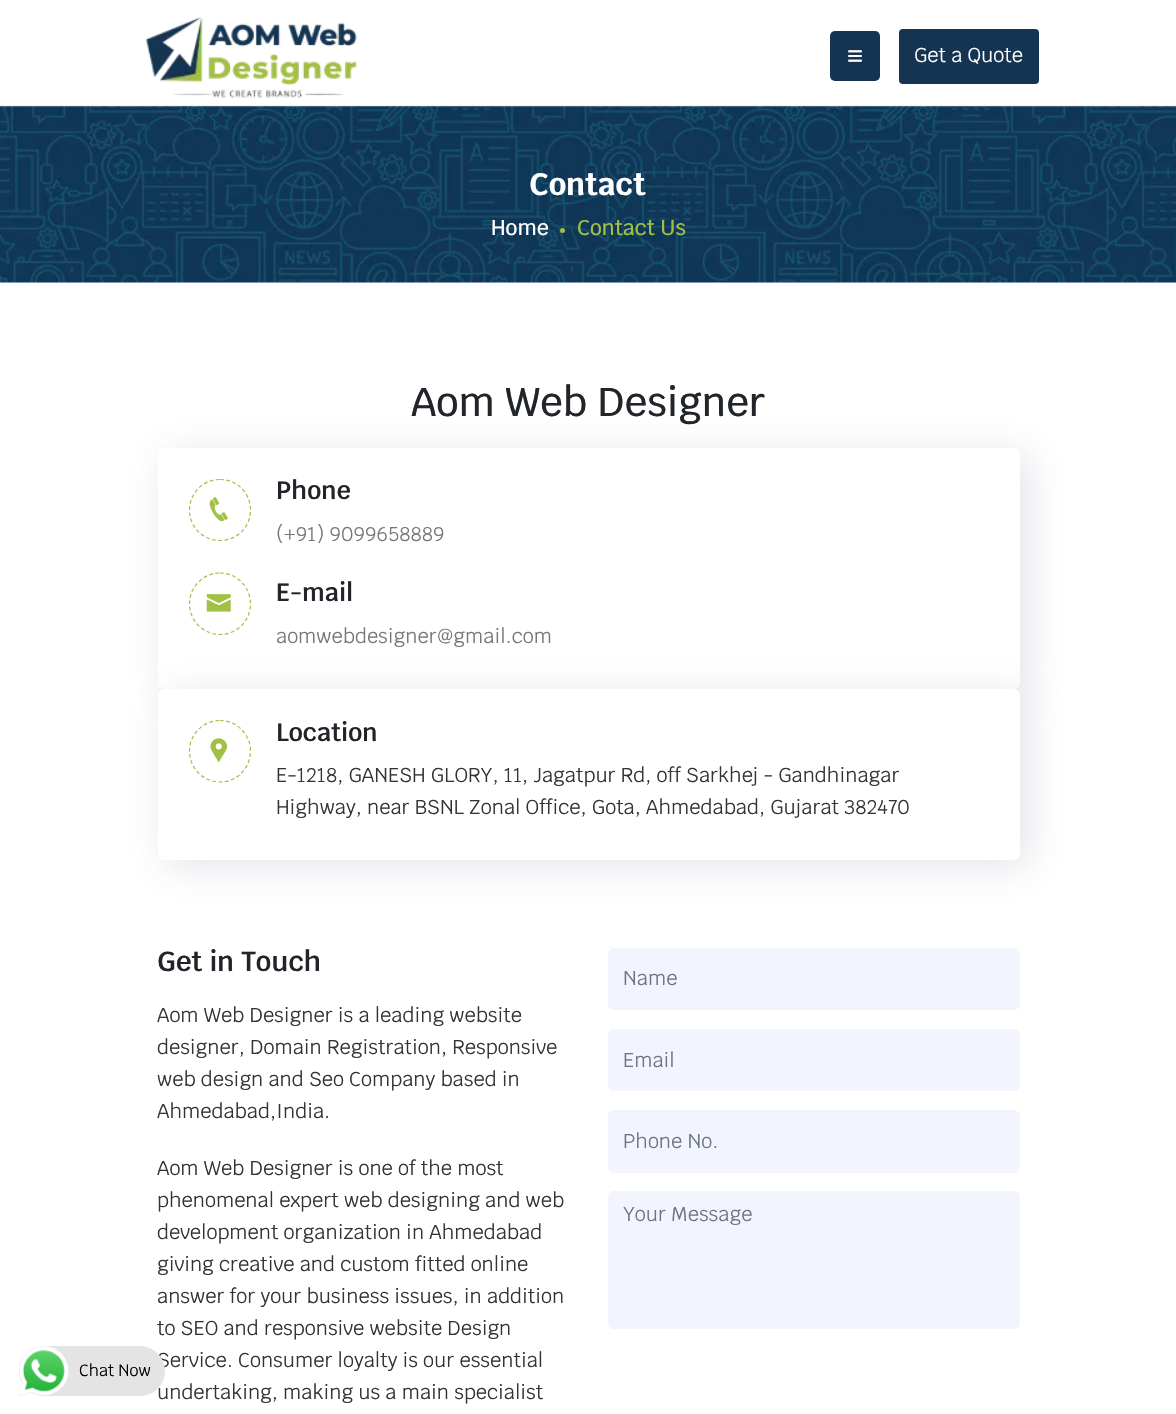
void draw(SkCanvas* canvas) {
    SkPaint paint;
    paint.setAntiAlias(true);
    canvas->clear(0xFFFFFFFF);
    paint.setColor(0xFFEFEFEF);
    canvas->drawRect(SkRect::MakeXYWH(0, 105, 1176, 1), paint);
    canvas->drawImageRect(SkImages::DeferredFromEncodedData(SkData::MakeFromFileName("img1.png")), SkRect::MakeXYWH(146, 17, 211, 81), SkSamplingOptions());
    paint.setColor(0xFF153452);
    canvas->drawRoundRect(SkRect::MakeXYWH(830, 31, 50, 50), 5, 5, paint);
    SkFont font1(fontMgr->matchFamilyStyle("Liberation Sans", SkFontStyle::Bold()), 27.5f);
    font1.setSubpixel(true);
    paint.setColor(0xFFFFFFFF);
    canvas->drawString("≡", 847, 65, font1, paint);
    paint.setColor(0xFF153452);
    canvas->drawRoundRect(SkRect::MakeXYWH(899, 29, 140, 55), 4, 4, paint);
    SkFont font2(fontMgr->matchFamilyStyle("Krub", SkFontStyle::Normal()), 20);
    font2.setSubpixel(true);
    paint.setColor(0xFFFFFFFF);
    canvas->drawString("Get a Quote", 914, 62, font2, paint);
    paint.setColor(0xFFF4F6FD);
    canvas->drawRect(SkRect::MakeXYWH(0, 106, 1176, 177), paint);
    canvas->drawImageRect(SkImages::DeferredFromEncodedData(SkData::MakeFromFileName("img2.png")), SkRect::MakeXYWH(0, 106, 1176, 177), SkSamplingOptions());
    SkFont font3(fontMgr->matchFamilyStyle("Krub", SkFontStyle::Bold()), 31);
    font3.setSubpixel(true);
    paint.setColor(0xFFFFFFFF);
    canvas->drawString("Contact", 529, 195, font3, paint);
    SkFont font4(fontMgr->matchFamilyStyle("Krub", SkFontStyle(500, SkFontStyle::kNormal_Width, SkFontStyle::kUpright_Slant)), 21.25f);
    font4.setSubpixel(true);
    canvas->drawString("Home", 491, 235, font4, paint);
    paint.setColor(0xFFA1C046);
    canvas->drawCircle(562.5f, 230.5f, 2.5f, paint);
    canvas->drawString("Contact Us", 577, 235, font4, paint);
    paint.setColor(0xFF333333);
    canvas->drawString("Service. Consumer loyalty is our essential", 157, 1367, font2, paint);
    canvas->drawString("undertaking, making us a main specialist", 157, 1399, font2, paint);
    paint.setColor(0xFFE4E4E4);
    canvas->drawRoundRect(SkRect::MakeXYWH(19, 1346, 146, 50), 25, 25, paint);
    canvas->drawImageRect(SkImages::DeferredFromEncodedData(SkData::MakeFromFileName("img3.png")), SkRect::MakeXYWH(19, 1346, 50, 51), SkSamplingOptions());
    SkFont font5(fontMgr->matchFamilyStyle("Krub", SkFontStyle::Normal()), 16.25f);
    font5.setSubpixel(true);
    paint.setColor(0xFF000000);
    canvas->drawString("Chat Now", 79, 1376, font5, paint);
    SkFont font6(fontMgr->matchFamilyStyle("Krub", SkFontStyle(500, SkFontStyle::kNormal_Width, SkFontStyle::kUpright_Slant)), 40);
    font6.setSubpixel(true);
    paint.setColor(0xFF212529);
    canvas->drawString("Aom Web Designer", 411, 416, font6, paint);
    paint.setColor(0x26484979);
    paint.setMaskFilter(SkMaskFilter::MakeBlur(kNormal_SkBlurStyle, 19));
    canvas->drawRoundRect(SkRect::MakeXYWH(166, 454, 863, 241), 6, 6, paint);
    paint.setMaskFilter(nullptr);
    paint.setColor(0xFFFFFFFF);
    canvas->drawRoundRect(SkRect::MakeXYWH(158, 448, 862, 241), 6, 6, paint);
    paint.setStyle(SkPaint::kStroke_Style);
    paint.setStrokeWidth(1.2f);
    paint.setColor(0xFFA1C046);
    paint.setPathEffect(SkDashPathEffect::Make({{3.75f, 2.5f}}, 0));
    canvas->drawPath(SkPathBuilder().moveTo(220, 479.5f).cubicTo(237, 479.5f, 250.5f, 493, 250.5f, 510).cubicTo(250.5f, 527, 237, 540.5f, 220, 540.5f).cubicTo(203, 540.5f, 189.5f, 527, 189.5f, 510).cubicTo(189.5f, 493, 203, 479.5f, 220, 479.5f).close().detach(), paint);
    paint.setPathEffect(nullptr);
    canvas->drawImageRect(SkImages::DeferredFromEncodedData(SkData::MakeFromFileName("img4.png")), SkRect::MakeXYWH(209, 497, 19, 25), SkSamplingOptions());
    SkFont font7(fontMgr->matchFamilyStyle("Krub", SkFontStyle(600, SkFontStyle::kNormal_Width, SkFontStyle::kUpright_Slant)), 25);
    font7.setSubpixel(true);
    paint.setStyle(SkPaint::kFill_Style);
    paint.setColor(0xFF212529);
    canvas->drawString("Phone", 276, 499, font7, paint);
    paint.setColor(0xFF777777);
    canvas->drawString("(+91) 9099658889", 276, 541, font2, paint);
    paint.setStyle(SkPaint::kStroke_Style);
    paint.setColor(0xFFA1C046);
    paint.setPathEffect(SkDashPathEffect::Make({{3.75f, 2.5f}}, 0));
    canvas->drawPath(SkPathBuilder().moveTo(220, 573).cubicTo(237, 573, 250.5f, 587, 250.5f, 604).cubicTo(250.5f, 620.5f, 237, 634.5f, 220, 634.5f).cubicTo(203, 634.5f, 189.5f, 620.5f, 189.5f, 604).cubicTo(189.5f, 587, 203, 573, 220, 573).close().detach(), paint);
    paint.setPathEffect(nullptr);
    canvas->drawImageRect(SkImages::DeferredFromEncodedData(SkData::MakeFromFileName("img5.png")), SkRect::MakeXYWH(206, 594, 25, 18), SkSamplingOptions());
    paint.setStyle(SkPaint::kFill_Style);
    paint.setColor(0xFF212529);
    canvas->drawString("E-mail", 276, 601, font7, paint);
    paint.setColor(0xFF777777);
    canvas->drawString("aomwebdesigner@gmail.com", 276, 643, font2, paint);
    paint.setColor(0x26484979);
    paint.setMaskFilter(SkMaskFilter::MakeBlur(kNormal_SkBlurStyle, 19));
    canvas->drawRoundRect(SkRect::MakeXYWH(166, 695, 863, 171), 6, 6, paint);
    paint.setMaskFilter(nullptr);
    paint.setColor(0xFFFFFFFF);
    canvas->drawRoundRect(SkRect::MakeXYWH(158, 689, 862, 171), 6, 6, paint);
    paint.setStyle(SkPaint::kStroke_Style);
    paint.setColor(0xFFA1C046);
    paint.setPathEffect(SkDashPathEffect::Make({{3.75f, 2.5f}}, 0));
    canvas->drawPath(SkPathBuilder().moveTo(220, 720.5f).cubicTo(237, 720.5f, 250.5f, 734.5f, 250.5f, 751).cubicTo(250.5f, 768, 237, 782, 220, 782).cubicTo(203, 782, 189.5f, 768, 189.5f, 751).cubicTo(189.5f, 734.5f, 203, 720.5f, 220, 720.5f).close().detach(), paint);
    paint.setPathEffect(nullptr);
    canvas->drawImageRect(SkImages::DeferredFromEncodedData(SkData::MakeFromFileName("img6.png")), SkRect::MakeXYWH(210, 738, 18, 25), SkSamplingOptions());
    paint.setStyle(SkPaint::kFill_Style);
    paint.setColor(0xFF212529);
    canvas->drawString("Location", 276, 741, font7, paint);
    paint.setColor(0xFF333333);
    canvas->drawString("E-1218, GANESH GLORY, 11, Jagatpur Rd, off Sarkhej - Gandhinagar", 276, 782, font2, paint);
    canvas->drawString("Highway, near BSNL Zonal Office, Gota, Ahmedabad, Gujarat 382470", 276, 814, font2, paint);
    SkFont font8(fontMgr->matchFamilyStyle("Krub", SkFontStyle(600, SkFontStyle::kNormal_Width, SkFontStyle::kUpright_Slant)), 27.5f);
    font8.setSubpixel(true);
    paint.setColor(0xFF212529);
    canvas->drawString("Get in Touch", 157, 971, font8, paint);
    paint.setColor(0xFF333333);
    canvas->drawString("Aom Web Designer is a leading website", 157, 1022, font2, paint);
    canvas->drawString("designer, Domain Registration, Responsive", 157, 1054, font2, paint);
    canvas->drawString("web design and Seo Company based in", 157, 1086, font2, paint);
    canvas->drawString("Ahmedabad,India.", 157, 1118, font2, paint);
    canvas->drawString("Aom Web Designer is one of the most", 157, 1175, font2, paint);
    canvas->drawString("phenomenal expert web designing and web", 157, 1207, font2, paint);
    canvas->drawString("development organization in Ahmedabad", 157, 1239, font2, paint);
    canvas->drawString("giving creative and custom fitted online", 157, 1271, font2, paint);
    canvas->drawString("answer for your business issues, in addition", 157, 1303, font2, paint);
    canvas->drawString("to SEO and responsive website Design", 157, 1335, font2, paint);
    paint.setColor(0xFFF3F5FE);
    canvas->drawRoundRect(SkRect::MakeXYWH(608.5f, 948.5f, 411, 61), 5.5f, 5.5f, paint);
    paint.setStyle(SkPaint::kStroke_Style);
    paint.setStrokeWidth(1);
    canvas->drawRoundRect(SkRect::MakeXYWH(608.5f, 948.5f, 411, 61), 5.5f, 5.5f, paint);
    paint.setStyle(SkPaint::kFill_Style);
    paint.setColor(0xFF6C757D);
    canvas->drawString("Name", 623, 985, font2, paint);
    paint.setColor(0xFFF3F5FE);
    canvas->drawRoundRect(SkRect::MakeXYWH(608.5f, 1029.5f, 411, 61), 5.5f, 5.5f, paint);
    paint.setStyle(SkPaint::kStroke_Style);
    canvas->drawRoundRect(SkRect::MakeXYWH(608.5f, 1029.5f, 411, 61), 5.5f, 5.5f, paint);
    paint.setStyle(SkPaint::kFill_Style);
    paint.setColor(0xFF6C757D);
    canvas->drawString("Email", 623, 1067, font2, paint);
    paint.setColor(0xFFF3F5FE);
    canvas->drawRoundRect(SkRect::MakeXYWH(608.5f, 1110.5f, 411, 62), 5.5f, 5.5f, paint);
    paint.setStyle(SkPaint::kStroke_Style);
    canvas->drawRoundRect(SkRect::MakeXYWH(608.5f, 1110.5f, 411, 62), 5.5f, 5.5f, paint);
    paint.setStyle(SkPaint::kFill_Style);
    paint.setColor(0xFF6C757D);
    canvas->drawString("Phone No.", 623, 1148, font2, paint);
    paint.setColor(0xFFF3F5FE);
    canvas->drawRoundRect(SkRect::MakeXYWH(608.5f, 1191.5f, 411, 137), 5.5f, 5.5f, paint);
    paint.setStyle(SkPaint::kStroke_Style);
    canvas->drawRoundRect(SkRect::MakeXYWH(608.5f, 1191.5f, 411, 137), 5.5f, 5.5f, paint);
    paint.setStyle(SkPaint::kFill_Style);
    paint.setColor(0xFF6C757D);
    canvas->drawString("Your Message", 623, 1221, font2, paint);
}
